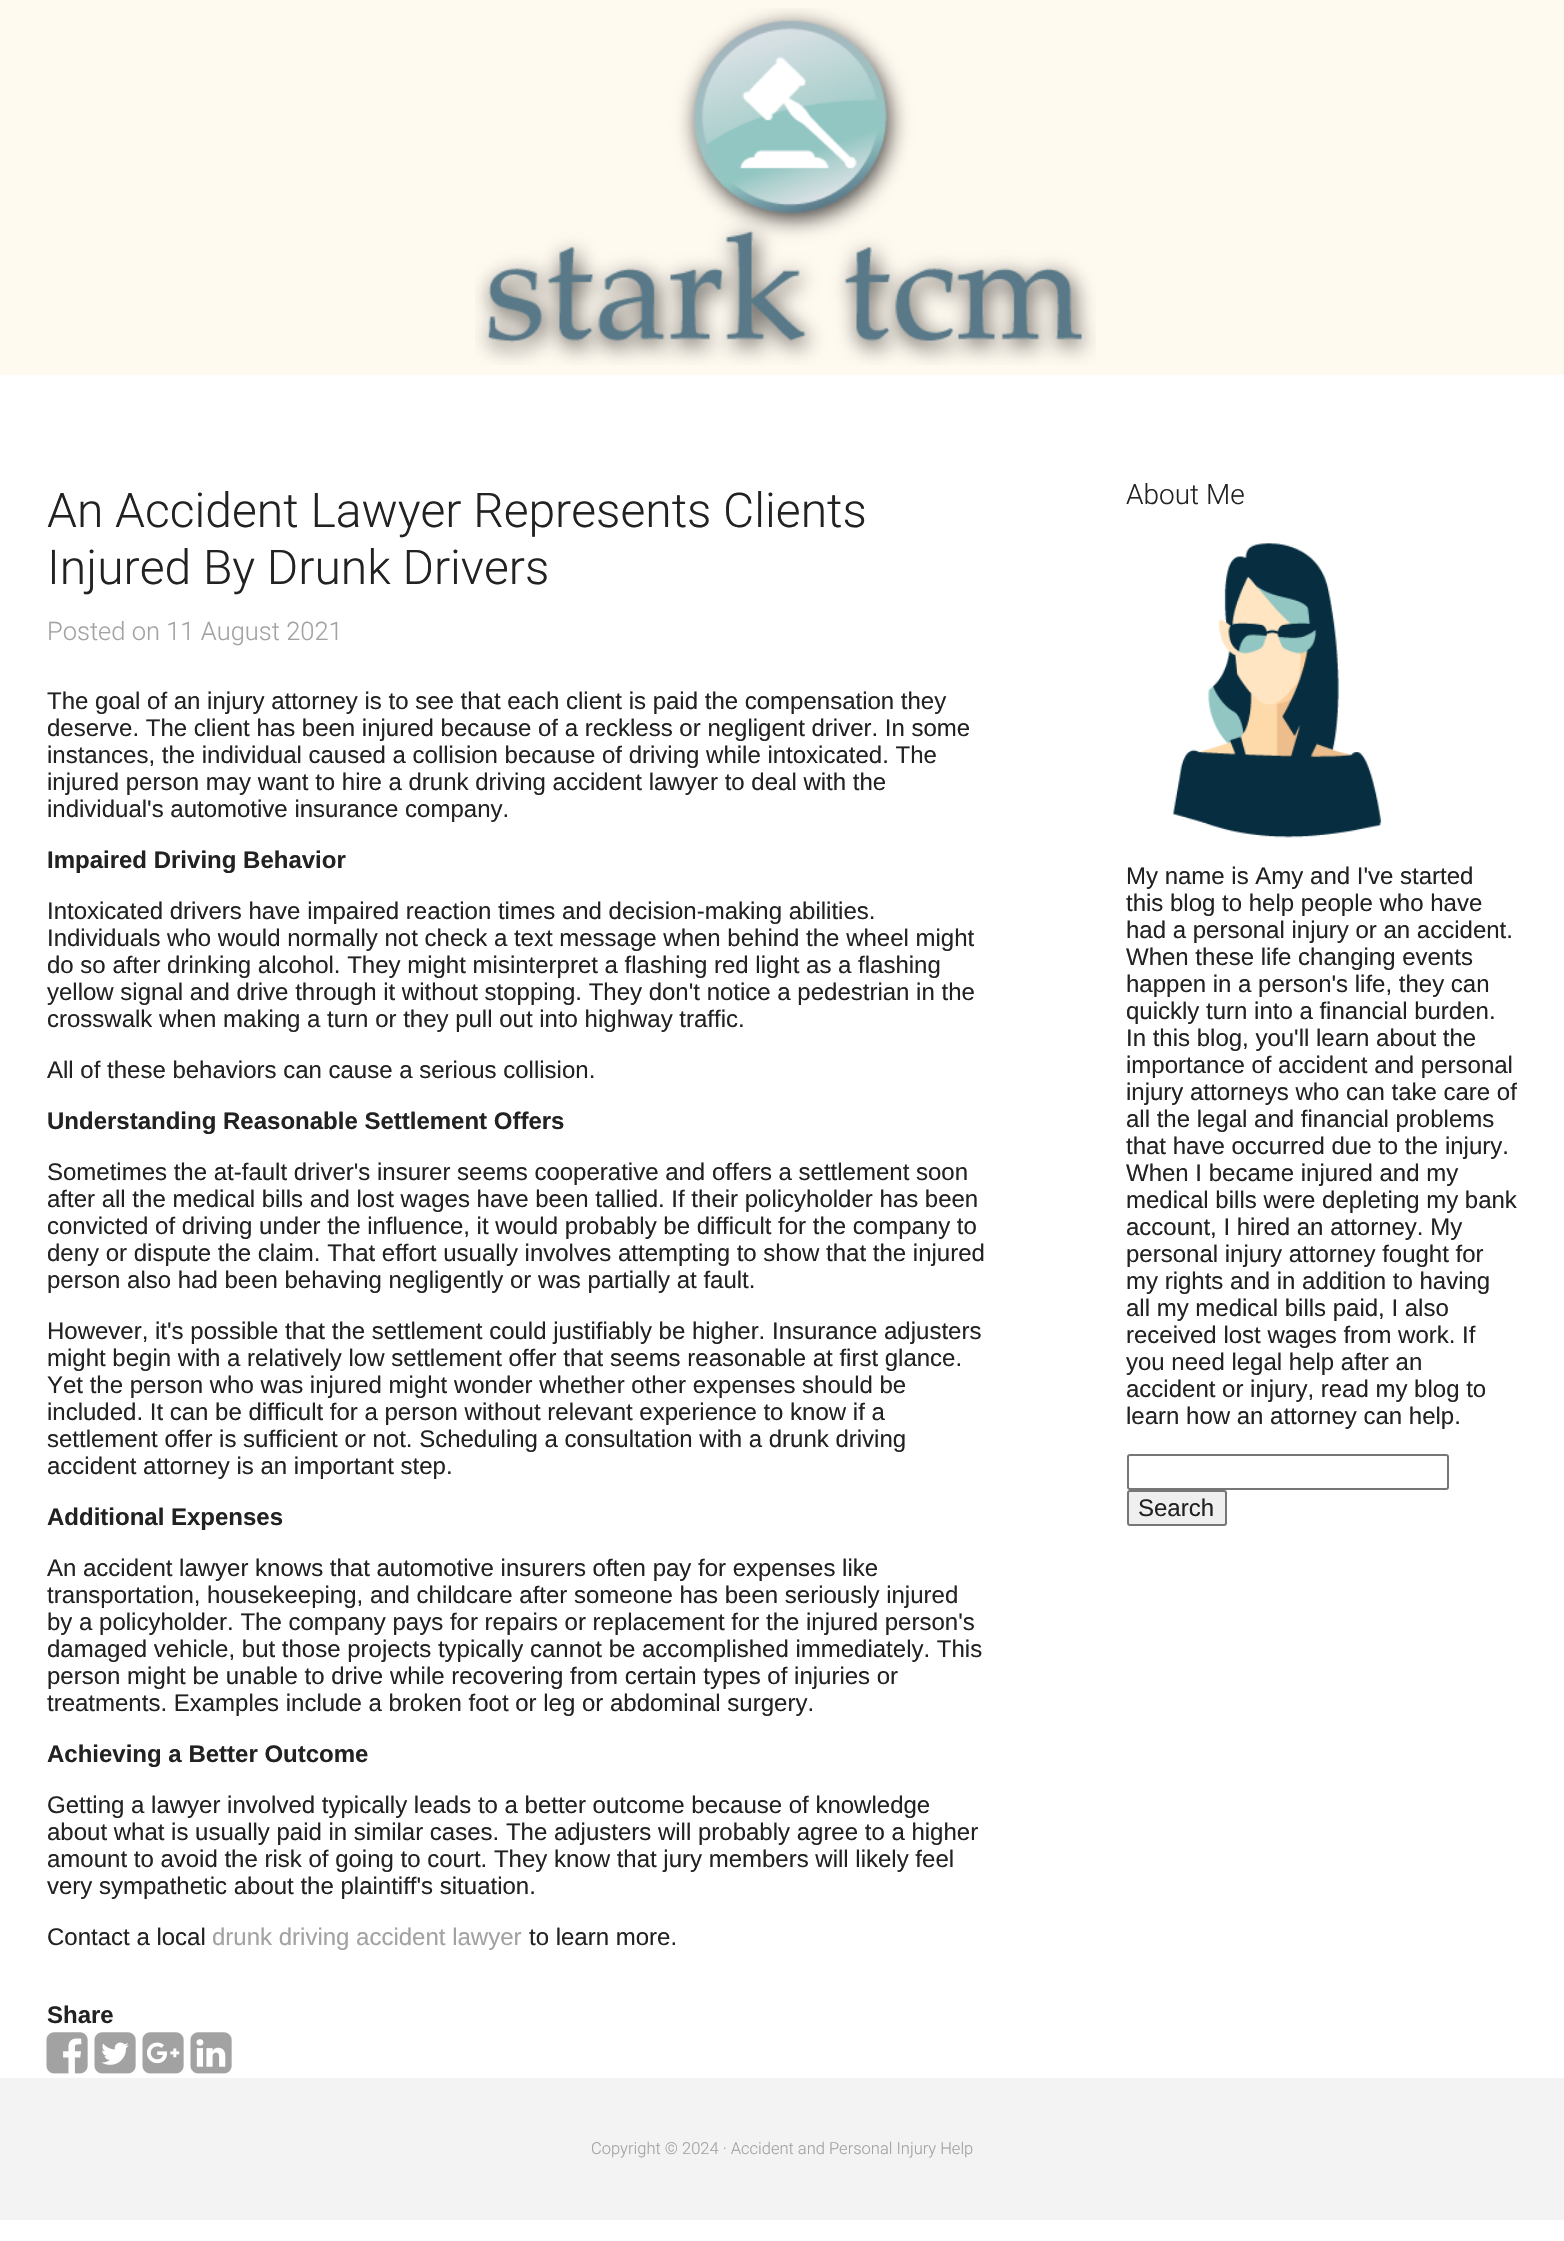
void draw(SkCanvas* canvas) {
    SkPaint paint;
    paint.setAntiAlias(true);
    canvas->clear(0xFFFFFFFF);
    paint.setColor(0xFFFFFAF0);
    canvas->drawRect(SkRect::MakeXYWH(0, 0, 1564, 375), paint);
    canvas->drawImageRect(SkImages::DeferredFromEncodedData(SkData::MakeFromFileName("img1.png")), SkRect::MakeXYWH(475, 8, 621, 357), SkSamplingOptions());
    SkFont font1(fontMgr->matchFamilyStyle("Roboto", SkFontStyle(300, SkFontStyle::kNormal_Width, SkFontStyle::kUpright_Slant)), 48);
    font1.setSubpixel(true);
    paint.setColor(0xFF222222);
    canvas->drawString("An Accident Lawyer Represents Clients", 47, 527, font1, paint);
    canvas->drawString("Injured By Drunk Drivers", 47, 584, font1, paint);
    SkFont font2(fontMgr->matchFamilyStyle("Roboto", SkFontStyle(300, SkFontStyle::kNormal_Width, SkFontStyle::kUpright_Slant)), 25.5f);
    font2.setSubpixel(true);
    paint.setColor(0xFFA2A2A2);
    canvas->drawString("Posted on 11 August 2021", 47, 640, font2, paint);
    SkFont font3(fontMgr->matchFamilyStyle("Liberation Sans", SkFontStyle::Normal()), 24);
    font3.setSubpixel(true);
    paint.setColor(0xFF222222);
    canvas->drawString("The goal of an injury attorney is to see that each client is paid the compensation they", 47, 709, font3, paint);
    canvas->drawString("deserve. The client has been injured because of a reckless or negligent driver. In some", 47, 736, font3, paint);
    canvas->drawString("instances, the individual caused a collision because of driving while intoxicated. The", 47, 763, font3, paint);
    canvas->drawString("injured person may want to hire a drunk driving accident lawyer to deal with the", 47, 790, font3, paint);
    canvas->drawString("individual's automotive insurance company.", 47, 817, font3, paint);
    SkFont font4(fontMgr->matchFamilyStyle("Liberation Sans", SkFontStyle::Bold()), 24);
    font4.setSubpixel(true);
    canvas->drawString("Impaired Driving Behavior", 47, 868, font4, paint);
    canvas->drawString("Intoxicated drivers have impaired reaction times and decision-making abilities.", 47, 919, font3, paint);
    canvas->drawString("Individuals who would normally not check a text message when behind the wheel might", 47, 946, font3, paint);
    canvas->drawString("do so after drinking alcohol. They might misinterpret a flashing red light as a flashing", 47, 973, font3, paint);
    canvas->drawString("yellow signal and drive through it without stopping. They don't notice a pedestrian in the", 47, 1000, font3, paint);
    canvas->drawString("crosswalk when making a turn or they pull out into highway traffic.", 47, 1027, font3, paint);
    canvas->drawString("All of these behaviors can cause a serious collision.", 47, 1078, font3, paint);
    canvas->drawString("Understanding Reasonable Settlement Offers", 47, 1129, font4, paint);
    canvas->drawString("Sometimes the at-fault driver's insurer seems cooperative and offers a settlement soon", 47, 1180, font3, paint);
    canvas->drawString("after all the medical bills and lost wages have been tallied. If their policyholder has been", 47, 1207, font3, paint);
    canvas->drawString("convicted of driving under the influence, it would probably be difficult for the company to", 47, 1234, font3, paint);
    canvas->drawString("deny or dispute the claim. That effort usually involves attempting to show that the injured", 47, 1261, font3, paint);
    canvas->drawString("person also had been behaving negligently or was partially at fault.", 47, 1288, font3, paint);
    canvas->drawString("However, it's possible that the settlement could justifiably be higher. Insurance adjusters", 47, 1339, font3, paint);
    canvas->drawString("might begin with a relatively low settlement offer that seems reasonable at first glance.", 47, 1366, font3, paint);
    canvas->drawString("Yet the person who was injured might wonder whether other expenses should be", 47, 1393, font3, paint);
    canvas->drawString("included. It can be difficult for a person without relevant experience to know if a", 47, 1420, font3, paint);
    canvas->drawString("settlement offer is sufficient or not. Scheduling a consultation with a drunk driving", 47, 1447, font3, paint);
    canvas->drawString("accident attorney is an important step.", 47, 1474, font3, paint);
    canvas->drawString("Additional Expenses", 47, 1525, font4, paint);
    canvas->drawString("An accident lawyer knows that automotive insurers often pay for expenses like", 47, 1576, font3, paint);
    canvas->drawString("transportation, housekeeping, and childcare after someone has been seriously injured", 47, 1603, font3, paint);
    canvas->drawString("by a policyholder. The company pays for repairs or replacement for the injured person's", 47, 1630, font3, paint);
    canvas->drawString("damaged vehicle, but those projects typically cannot be accomplished immediately. This", 47, 1657, font3, paint);
    canvas->drawString("person might be unable to drive while recovering from certain types of injuries or", 47, 1684, font3, paint);
    canvas->drawString("treatments. Examples include a broken foot or leg or abdominal surgery.", 47, 1711, font3, paint);
    canvas->drawString("Achieving a Better Outcome", 47, 1762, font4, paint);
    canvas->drawString("Getting a lawyer involved typically leads to a better outcome because of knowledge", 47, 1813, font3, paint);
    canvas->drawString("about what is usually paid in similar cases. The adjusters will probably agree to a higher", 47, 1840, font3, paint);
    canvas->drawString("amount to avoid the risk of going to court. They know that jury members will likely feel", 47, 1867, font3, paint);
    canvas->drawString("very sympathetic about the plaintiff's situation.", 47, 1894, font3, paint);
    canvas->drawString("Contact a local", 47, 1945, font3, paint);
    paint.setColor(0xFFA2A2A2);
    canvas->drawString("drunk driving accident lawyer", 212, 1945, font3, paint);
    paint.setColor(0xFF222222);
    canvas->drawString("to learn more.", 529, 1945, font3, paint);
    canvas->drawString("Share", 47, 2023, font4, paint);
    canvas->drawImageRect(SkImages::DeferredFromEncodedData(SkData::MakeFromFileName("img2.png")), SkRect::MakeXYWH(46, 2032, 42, 42), SkSamplingOptions());
    canvas->drawImageRect(SkImages::DeferredFromEncodedData(SkData::MakeFromFileName("img3.png")), SkRect::MakeXYWH(94, 2032, 42, 42), SkSamplingOptions());
    canvas->drawImageRect(SkImages::DeferredFromEncodedData(SkData::MakeFromFileName("img4.png")), SkRect::MakeXYWH(142, 2032, 42, 42), SkSamplingOptions());
    canvas->drawImageRect(SkImages::DeferredFromEncodedData(SkData::MakeFromFileName("img5.png")), SkRect::MakeXYWH(190, 2032, 42, 42), SkSamplingOptions());
    SkFont font5(fontMgr->matchFamilyStyle("Roboto", SkFontStyle(300, SkFontStyle::kNormal_Width, SkFontStyle::kUpright_Slant)), 28);
    font5.setSubpixel(true);
    canvas->drawString("About Me", 1126, 504, font5, paint);
    canvas->drawImageRect(SkImages::DeferredFromEncodedData(SkData::MakeFromFileName("img6.png")), SkRect::MakeXYWH(1173, 543, 209, 295), SkSamplingOptions());
    canvas->drawString("My name is Amy and I've started", 1126, 884, font3, paint);
    canvas->drawString("this blog to help people who have", 1126, 911, font3, paint);
    canvas->drawString("had a personal injury or an accident.", 1126, 938, font3, paint);
    canvas->drawString("When these life changing events", 1126, 965, font3, paint);
    canvas->drawString("happen in a person's life, they can", 1126, 992, font3, paint);
    canvas->drawString("quickly turn into a financial burden.", 1126, 1019, font3, paint);
    canvas->drawString("In this blog, you'll learn about the", 1126, 1046, font3, paint);
    canvas->drawString("importance of accident and personal", 1126, 1073, font3, paint);
    canvas->drawString("injury attorneys who can take care of", 1126, 1100, font3, paint);
    canvas->drawString("all the legal and financial problems", 1126, 1127, font3, paint);
    canvas->drawString("that have occurred due to the injury.", 1126, 1154, font3, paint);
    canvas->drawString("When I became injured and my", 1126, 1181, font3, paint);
    canvas->drawString("medical bills were depleting my bank", 1126, 1208, font3, paint);
    canvas->drawString("account, I hired an attorney. My", 1126, 1235, font3, paint);
    canvas->drawString("personal injury attorney fought for", 1126, 1262, font3, paint);
    canvas->drawString("my rights and in addition to having", 1126, 1289, font3, paint);
    canvas->drawString("all my medical bills paid, I also", 1126, 1316, font3, paint);
    canvas->drawString("received lost wages from work. If", 1126, 1343, font3, paint);
    canvas->drawString("you need legal help after an", 1126, 1370, font3, paint);
    canvas->drawString("accident or injury, read my blog to", 1126, 1397, font3, paint);
    canvas->drawString("learn how an attorney can help.", 1126, 1424, font3, paint);
    paint.setStyle(SkPaint::kStroke_Style);
    paint.setStrokeWidth(2);
    paint.setColor(0xFF767676);
    canvas->drawRoundRect(SkRect::MakeXYWH(1128, 1455, 320, 34), 2, 2, paint);
    paint.setStyle(SkPaint::kFill_Style);
    paint.setColor(0xFFEFEFEF);
    canvas->drawRoundRect(SkRect::MakeXYWH(1128, 1491, 98, 34), 2, 2, paint);
    paint.setStyle(SkPaint::kStroke_Style);
    paint.setColor(0xFF767676);
    canvas->drawRoundRect(SkRect::MakeXYWH(1128, 1491, 98, 34), 2, 2, paint);
    paint.setStyle(SkPaint::kFill_Style);
    paint.setColor(0xFF222222);
    canvas->drawString("Search", 1138, 1516, font3, paint);
    paint.setColor(0xFFF3F3F3);
    canvas->drawRect(SkRect::MakeXYWH(0, 2078, 1564, 142), paint);
    SkFont font6(fontMgr->matchFamilyStyle("Roboto", SkFontStyle(300, SkFontStyle::kNormal_Width, SkFontStyle::kUpright_Slant)), 16.5f);
    font6.setSubpixel(true);
    paint.setColor(0xFFA2A2A2);
    canvas->drawString("Copyright © 2024 · Accident and Personal Injury Help", 591, 2154, font6, paint);
}
